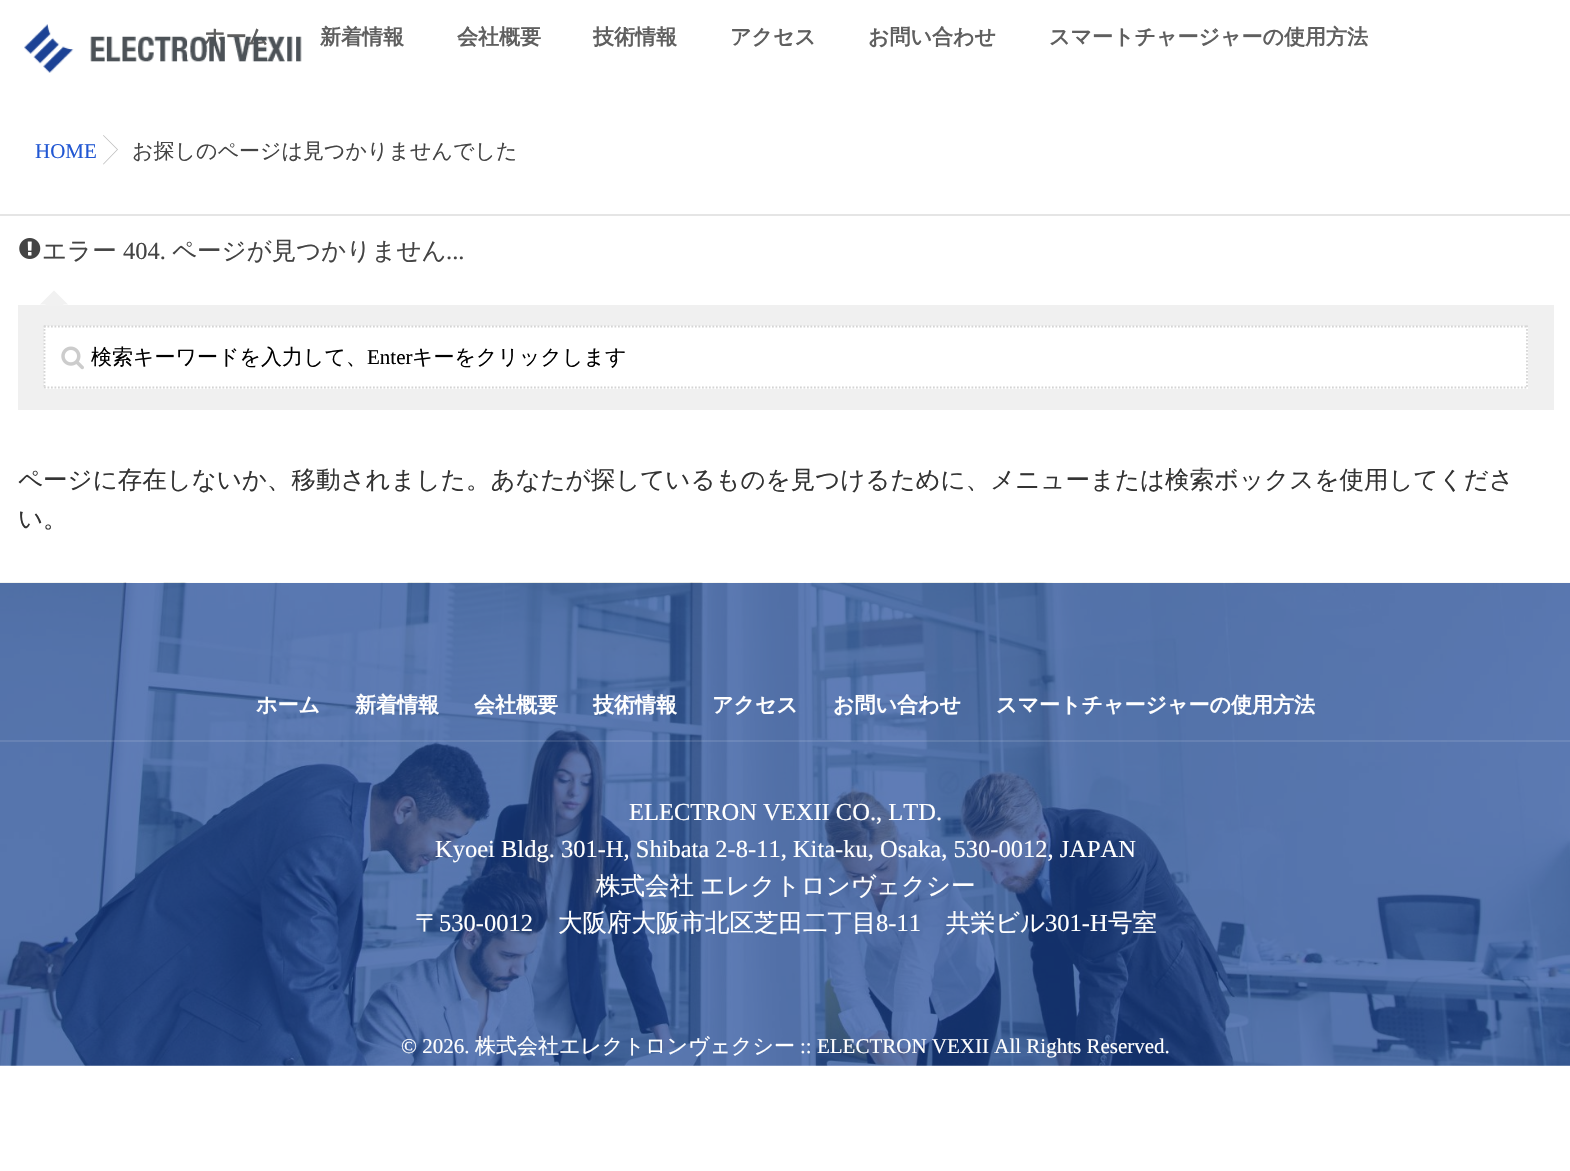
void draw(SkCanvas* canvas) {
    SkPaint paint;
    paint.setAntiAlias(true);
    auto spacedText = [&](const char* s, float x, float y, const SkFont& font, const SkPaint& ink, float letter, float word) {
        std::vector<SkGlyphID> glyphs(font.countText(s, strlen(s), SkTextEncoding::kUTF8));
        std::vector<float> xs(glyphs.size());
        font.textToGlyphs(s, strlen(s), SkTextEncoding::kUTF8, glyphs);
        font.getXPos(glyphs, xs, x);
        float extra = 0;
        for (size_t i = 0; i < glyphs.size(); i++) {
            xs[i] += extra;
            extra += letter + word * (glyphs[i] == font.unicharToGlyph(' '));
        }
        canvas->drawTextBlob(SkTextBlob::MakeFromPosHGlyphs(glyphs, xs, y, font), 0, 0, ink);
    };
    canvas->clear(0xFFFFFFFF);
    SkFont font1(fontMgr->matchFamilyStyle("WenQuanYi Zen Hei", SkFontStyle::Bold()), 21);
    font1.setSubpixel(true);
    paint.setColor(0xFF5F5F5F);
    canvas->drawString("ホーム", 204, 44, font1, paint);
    canvas->drawImageRect(SkImages::DeferredFromEncodedData(SkData::MakeFromFileName("img1.png")), SkRect::MakeXYWH(24, 24, 278, 49), SkSamplingOptions());
    canvas->drawString("新着情報", 320, 44, font1, paint);
    canvas->drawString("会社概要", 457, 44, font1, paint);
    canvas->drawString("技術情報", 593, 44, font1, paint);
    canvas->drawString("アクセス", 730, 44, font1, paint);
    canvas->drawString("お問い合わせ", 868, 44, font1, paint);
    canvas->drawString("スマートチャージャーの使用方法", 1049, 44, font1, paint);
    paint.setColor(0xFFE5E5E5);
    canvas->drawRect(SkRect::MakeXYWH(0, 214, 1570, 2), paint);
    SkFont font2(fontMgr->matchFamilyStyle("Liberation Serif", SkFontStyle::Normal()), 21);
    font2.setSubpixel(true);
    paint.setColor(0xFF2157D3);
    canvas->drawString("HOME", 35, 158, font2, paint);
    paint.setColor(0xFFBCBCBC);
    canvas->drawPath(SkPathBuilder().moveTo(103, 135.5f).lineTo(117, 149.5f).lineTo(103, 164).lineTo(103.5f, 164.5f).lineTo(118, 149.5f).lineTo(103.5f, 135).close().detach(), paint);
    SkFont font3(fontMgr->matchFamilyStyle("WenQuanYi Zen Hei", SkFontStyle(500, SkFontStyle::kNormal_Width, SkFontStyle::kUpright_Slant)), 21);
    font3.setSubpixel(true);
    paint.setColor(0xFF444444);
    canvas->drawString("お探しのページは見つかりませんでした", 132, 158, font3, paint);
    canvas->drawImageRect(SkImages::DeferredFromEncodedData(SkData::MakeFromFileName("img2.png")), SkRect::MakeXYWH(19, 238, 22, 21), SkSamplingOptions());
    SkFont font4(fontMgr->matchFamilyStyle("WenQuanYi Zen Hei", SkFontStyle(500, SkFontStyle::kNormal_Width, SkFontStyle::kUpright_Slant)), 24.5f);
    font4.setSubpixel(true);
    canvas->drawString("エラー", 42, 259, font4, paint);
    SkFont font5(fontMgr->matchFamilyStyle("Liberation Serif", SkFontStyle::Normal()), 24.5f);
    font5.setSubpixel(true);
    canvas->drawString("404.", 123, 259, font5, paint);
    canvas->drawString("ページが見つかりません", 172, 259, font4, paint);
    canvas->drawString("...", 446, 259, font5, paint);
    paint.setColor(0xFFF0F0F0);
    canvas->drawRect(SkRect::MakeXYWH(18, 305, 1536, 105), paint);
    paint.setColor(0xFFF1F1F1);
    canvas->drawPath(SkPathBuilder().moveTo(68, 304.5f).lineTo(40, 304.5f).lineTo(54, 290.5f).close().detach(), paint);
    canvas->drawPath(SkPathBuilder().moveTo(65, 306).lineTo(44, 306).lineTo(54, 296).close().detach(), paint);
    paint.setColor(0xFFFFFFFF);
    canvas->drawRect(SkRect::MakeXYWH(44, 326, 1484, 63), paint);
    canvas->drawImageRect(SkImages::DeferredFromEncodedData(SkData::MakeFromFileName("img3.png")), SkRect::MakeXYWH(61, 346, 23, 24), SkSamplingOptions());
    paint.setStyle(SkPaint::kStroke_Style);
    paint.setStrokeWidth(1.8f);
    paint.setColor(0xFFD4D4D4);
    paint.setPathEffect(SkDashPathEffect::Make({{1.75f, 1.75f}}, 0));
    canvas->drawPath(SkPathBuilder().moveTo(44, 326.5f).lineTo(1528, 326.5f).detach(), paint);
    paint.setPathEffect(nullptr);
    paint.setPathEffect(SkDashPathEffect::Make({{1.75f, 1.75f}}, 0));
    canvas->drawPath(SkPathBuilder().moveTo(1527, 325.5f).lineTo(1527, 388.5f).detach(), paint);
    paint.setPathEffect(nullptr);
    paint.setPathEffect(SkDashPathEffect::Make({{1.75f, 1.75f}}, 0));
    canvas->drawPath(SkPathBuilder().moveTo(44, 387.5f).lineTo(1528, 387.5f).detach(), paint);
    paint.setPathEffect(nullptr);
    paint.setPathEffect(SkDashPathEffect::Make({{1.75f, 1.75f}}, 0));
    canvas->drawPath(SkPathBuilder().moveTo(44.5f, 325.5f).lineTo(44.5f, 388.5f).detach(), paint);
    paint.setPathEffect(nullptr);
    paint.setStyle(SkPaint::kFill_Style);
    paint.setColor(0xFF000000);
    canvas->drawString("検索キーワードを入力して、", 91, 364, font3, paint);
    canvas->drawString("Enter", 367, 364, font2, paint);
    canvas->drawString("キーをクリックします", 412, 364, font3, paint);
    paint.setColor(0xFF333333);
    canvas->drawString("ページに存在しないか、移動されました。あなたが探しているものを見つけるために、メニューまたは検索ボックスを使用してくださ", 18, 488, font4, paint);
    canvas->drawString("い。", 18, 527, font4, paint);
    canvas->drawImageRect(SkImages::DeferredFromEncodedData(SkData::MakeFromFileName("img4.png")), SkRect::MakeXYWH(0, 582, 1570, 484), SkSamplingOptions());
    paint.setColor(0x1AFFFFFF);
    canvas->drawRect(SkRect::MakeXYWH(0, 740, 1570, 2), paint);
    paint.setColor(0xFFFFFFFF);
    canvas->drawString("ホーム", 256, 712, font1, paint);
    canvas->drawString("新着情報", 355, 712, font1, paint);
    canvas->drawString("会社概要", 474, 712, font1, paint);
    canvas->drawString("技術情報", 593, 712, font1, paint);
    canvas->drawString("アクセス", 712, 712, font1, paint);
    canvas->drawString("お問い合わせ", 833, 712, font1, paint);
    canvas->drawString("スマートチャージャーの使用方法", 996, 712, font1, paint);
    canvas->drawString("ELECTRON VEXII CO., LTD.", 629, 820, font5, paint);
    canvas->drawString("Kyoei Bldg. 301-H, Shibata 2-8-11, Kita-ku, Osaka, 530-0012, JAPAN", 435, 857, font5, paint);
    spacedText("株式会社 エレクトロンヴェクシー", 596, 894, font4, paint, 0, -1);
    canvas->drawString("〒", 415, 931, font4, paint);
    canvas->drawString("530-0012", 439, 931, font5, paint);
    canvas->drawString("大阪府大阪市北区芝田二丁目", 558, 931, font4, paint);
    canvas->drawString("8-11", 876, 931, font5, paint);
    canvas->drawString("共栄ビル", 946, 931, font4, paint);
    canvas->drawString("301-H", 1045, 931, font5, paint);
    canvas->drawString("号室", 1108, 931, font4, paint);
    canvas->drawString("© 2026.", 401, 1053, font2, paint);
    canvas->drawString("株式会社エレクトロンヴェクシー", 475, 1053, font3, paint);
    canvas->drawString(":: ELECTRON VEXII All Rights Reserved.", 800, 1053, font2, paint);
}
